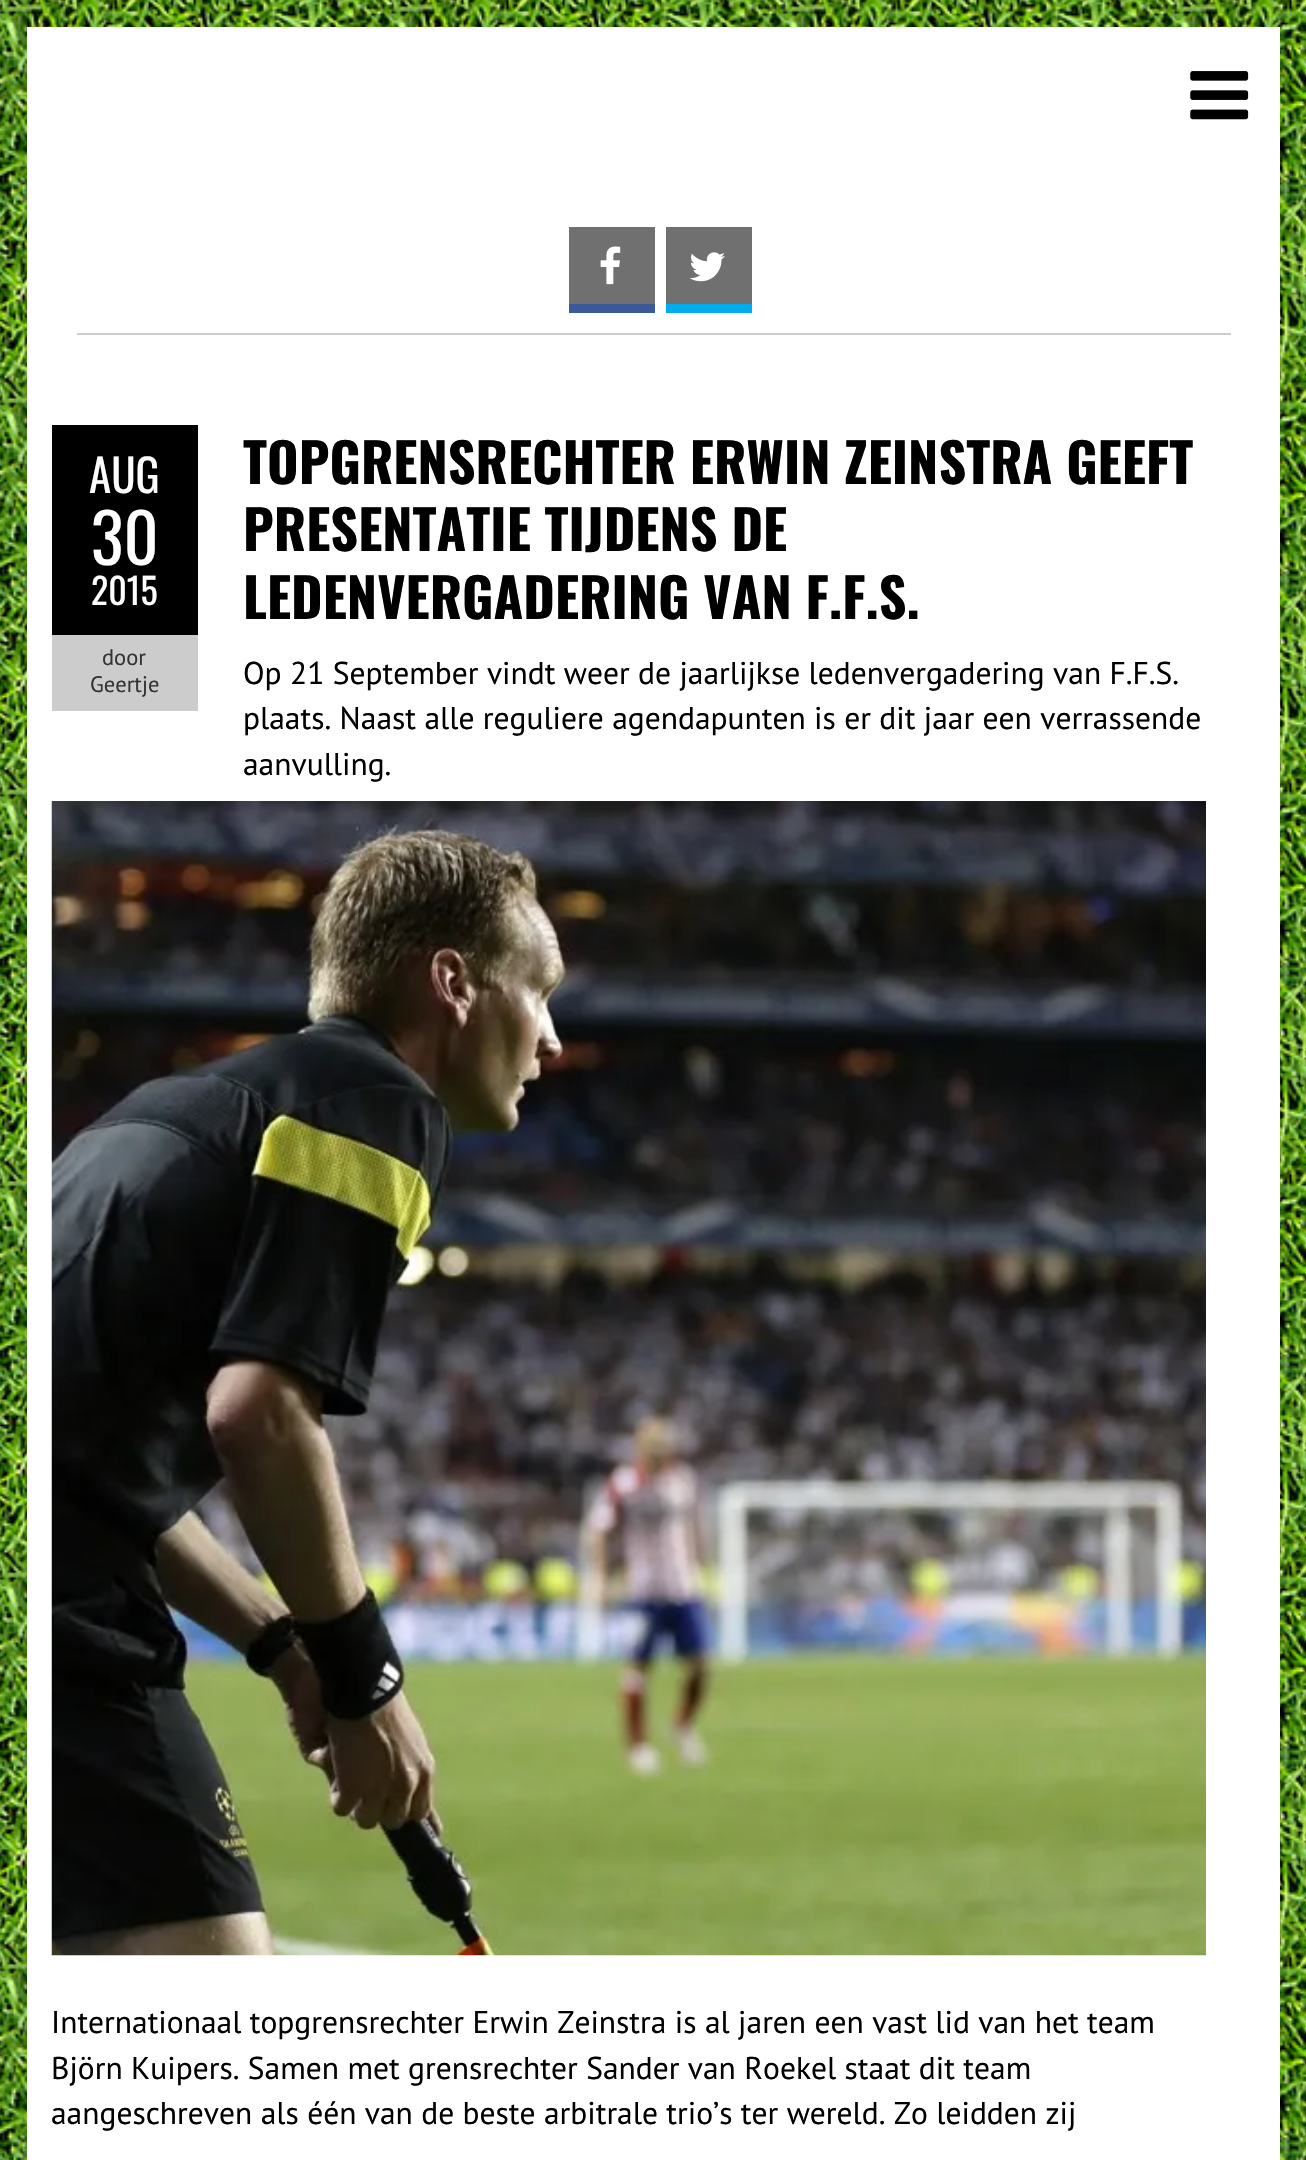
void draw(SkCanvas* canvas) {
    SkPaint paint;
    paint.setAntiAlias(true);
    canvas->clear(0xFFFFFFFF);
    canvas->drawImageRect(SkImages::DeferredFromEncodedData(SkData::MakeFromFileName("img1.png")), SkRect::MakeXYWH(0, 0, 1306, 2160), SkSamplingOptions());
    paint.setColor(0xFFFFFFFF);
    canvas->drawRect(SkRect::MakeXYWH(27, 27, 1253, 2133), paint);
    canvas->drawImageRect(SkImages::DeferredFromEncodedData(SkData::MakeFromFileName("img2.png")), SkRect::MakeXYWH(1190, 71, 59, 49), SkSamplingOptions());
    paint.setColor(0xFFCCCCCC);
    canvas->drawRect(SkRect::MakeXYWH(77, 333, 1154, 2), paint);
    paint.setColor(0xFF707070);
    canvas->drawRect(SkRect::MakeXYWH(569, 227, 86, 77), paint);
    paint.setColor(0xFF3B5998);
    canvas->drawRect(SkRect::MakeXYWH(569, 304, 86, 9), paint);
    canvas->drawImageRect(SkImages::DeferredFromEncodedData(SkData::MakeFromFileName("img3.png")), SkRect::MakeXYWH(600, 246, 21, 39), SkSamplingOptions());
    paint.setColor(0xFF707070);
    canvas->drawRect(SkRect::MakeXYWH(666, 227, 86, 77), paint);
    paint.setColor(0xFF00ACED);
    canvas->drawRect(SkRect::MakeXYWH(666, 304, 86, 9), paint);
    canvas->drawImageRect(SkImages::DeferredFromEncodedData(SkData::MakeFromFileName("img4.png")), SkRect::MakeXYWH(689, 252, 36, 30), SkSamplingOptions());
    paint.setColor(0xFF000000);
    canvas->drawRect(SkRect::MakeXYWH(52, 425, 146, 210), paint);
    SkFont font1(fontMgr->matchFamilyStyle("Oswald", SkFontStyle::Normal()), 45);
    font1.setSubpixel(true);
    paint.setColor(0xFFFFFFFF);
    canvas->drawString("AUG", 89, 493, font1, paint);
    SkFont font2(fontMgr->matchFamilyStyle("Oswald", SkFontStyle::Normal()), 68);
    font2.setSubpixel(true);
    canvas->drawString("30", 91, 565, font2, paint);
    SkFont font3(fontMgr->matchFamilyStyle("Oswald", SkFontStyle::Normal()), 36);
    font3.setSubpixel(true);
    canvas->drawString("2015", 91, 605, font3, paint);
    paint.setColor(0xFFCCCCCC);
    canvas->drawRect(SkRect::MakeXYWH(52, 635, 146, 76), paint);
    SkFont font4(fontMgr->matchFamilyStyle("PT Sans", SkFontStyle::Normal()), 22.5f);
    font4.setSubpixel(true);
    paint.setColor(0xFF333333);
    canvas->drawString("door", 102, 665, font4, paint);
    canvas->drawString("Geertje", 90, 692, font4, paint);
    SkFont font5(fontMgr->matchFamilyStyle("Oswald", SkFontStyle::Bold()), 54);
    font5.setSubpixel(true);
    paint.setColor(0xFF000000);
    canvas->drawString("TOPGRENSRECHTER ERWIN ZEINSTRA GEEFT", 243, 484, font5, paint);
    canvas->drawString("PRESENTATIE TIJDENS DE", 243, 551, font5, paint);
    canvas->drawString("LEDENVERGADERING VAN F.F.S.", 243, 619, font5, paint);
    SkFont font6(fontMgr->matchFamilyStyle("PT Sans", SkFontStyle::Normal()), 31.5f);
    font6.setSubpixel(true);
    canvas->drawString("Op 21 September vindt weer de jaarlijkse ledenvergadering van F.F.S.", 243, 684, font6, paint);
    canvas->drawString("plaats. Naast alle reguliere agendapunten is er dit jaar een verrassende", 243, 729, font6, paint);
    canvas->drawString("aanvulling.", 243, 775, font6, paint);
    canvas->drawImageRect(SkImages::DeferredFromEncodedData(SkData::MakeFromFileName("img5.png")), SkRect::MakeXYWH(51, 801, 1155, 1155), SkSamplingOptions());
    canvas->drawString("Internationaal topgrensrechter Erwin Zeinstra is al jaren een vast lid van het team", 51, 2033, font6, paint);
    canvas->drawString("Björn Kuipers. Samen met grensrechter Sander van Roekel staat dit team", 51, 2079, font6, paint);
    canvas->drawString("aangeschreven als één van de beste arbitrale trio’s ter wereld. Zo leidden zij", 51, 2124, font6, paint);
}
